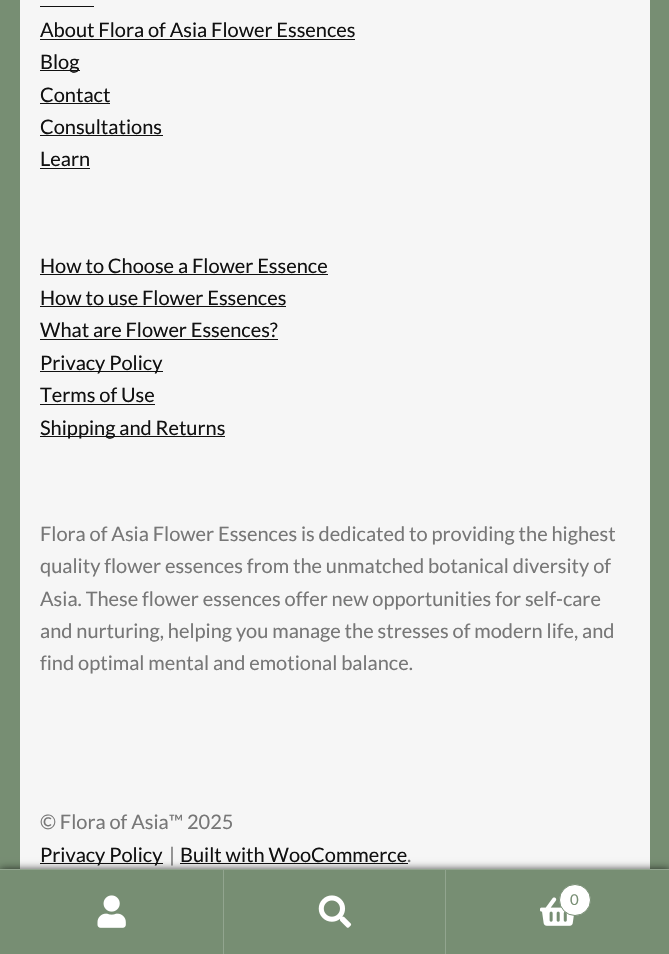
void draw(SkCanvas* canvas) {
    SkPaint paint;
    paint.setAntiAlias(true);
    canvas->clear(0xFF778E73);
    paint.setColor(0xFFF6F6F6);
    canvas->drawRect(SkRect::MakeXYWH(20, 0, 630, 869), paint);
    paint.setColor(0xFF111111);
    canvas->drawRect(SkRect::MakeXYWH(40, 6, 54, 1), paint);
    SkFont font1(fontMgr->matchFamilyStyle("Lato", SkFontStyle::Normal()), 20);
    font1.setSubpixel(true);
    canvas->drawString("About Flora of Asia Flower Essences", 40, 37, font1, paint);
    canvas->drawRect(SkRect::MakeXYWH(40, 39, 315, 1), paint);
    canvas->drawRect(SkRect::MakeXYWH(40, 70, 40, 1), paint);
    canvas->drawString("Blog", 40, 69, font1, paint);
    canvas->drawString("Contact", 40, 102, font1, paint);
    canvas->drawRect(SkRect::MakeXYWH(40, 103, 70, 1), paint);
    canvas->drawString("Consultations", 40, 134, font1, paint);
    canvas->drawRect(SkRect::MakeXYWH(40, 135, 123, 1), paint);
    canvas->drawString("Learn", 40, 166, font1, paint);
    canvas->drawRect(SkRect::MakeXYWH(40, 168, 50, 1), paint);
    canvas->drawString("How to Choose a Flower Essence", 40, 273, font1, paint);
    canvas->drawRect(SkRect::MakeXYWH(40, 274, 288, 1), paint);
    canvas->drawString("How to use Flower Essences", 40, 305, font1, paint);
    canvas->drawRect(SkRect::MakeXYWH(40, 306, 246, 1), paint);
    canvas->drawString("What are Flower Essences?", 40, 337, font1, paint);
    canvas->drawRect(SkRect::MakeXYWH(40, 339, 238, 1), paint);
    canvas->drawRect(SkRect::MakeXYWH(40, 371, 123, 1), paint);
    canvas->drawString("Privacy Policy", 40, 370, font1, paint);
    canvas->drawString("Terms of Use", 40, 402, font1, paint);
    canvas->drawRect(SkRect::MakeXYWH(40, 404, 115, 1), paint);
    canvas->drawRect(SkRect::MakeXYWH(40, 436, 185, 1), paint);
    canvas->drawString("Shipping and Returns", 40, 435, font1, paint);
    paint.setColor(0xFF777777);
    canvas->drawString("Flora of Asia Flower Essences is dedicated to providing the highest", 40, 541, font1, paint);
    canvas->drawString("quality flower essences from the unmatched botanical diversity of", 40, 573, font1, paint);
    canvas->drawString("Asia. These flower essences offer new opportunities for self-care", 40, 606, font1, paint);
    canvas->drawString("and nurturing, helping you manage the stresses of modern life, and", 40, 638, font1, paint);
    canvas->drawString("find optimal mental and emotional balance.", 40, 670, font1, paint);
    canvas->drawString("© Flora of Asia™ 2025", 40, 829, font1, paint);
    paint.setColor(0xFF111111);
    canvas->drawRect(SkRect::MakeXYWH(40, 863, 123, 1), paint);
    canvas->drawString("Privacy Policy", 40, 862, font1, paint);
    paint.setColor(0xFF777777);
    canvas->drawString("|", 169, 862, font1, paint);
    paint.setColor(0xFF111111);
    canvas->drawString("Built with WooCommerce", 180, 862, font1, paint);
    canvas->drawRect(SkRect::MakeXYWH(180, 863, 228, 1), paint);
    paint.setColor(0xFF777777);
    canvas->drawString(".", 407, 862, font1, paint);
    paint.setColor(0xB3000000);
    paint.setMaskFilter(SkMaskFilter::MakeBlur(kNormal_SkBlurStyle, 4));
    canvas->drawRect(SkRect::MakeXYWH(0, 869, 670, 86), paint);
    paint.setMaskFilter(nullptr);
    paint.setColor(0xFF92A58F);
    canvas->drawRect(SkRect::MakeXYWH(0, 869, 669, 1), paint);
    paint.setColor(0xFF778E73);
    canvas->drawRect(SkRect::MakeXYWH(0, 870, 223, 84), paint);
    paint.setColor(0xFF92A58F);
    canvas->drawRect(SkRect::MakeXYWH(223, 870, 1, 84), paint);
    canvas->drawImageRect(SkImages::DeferredFromEncodedData(SkData::MakeFromFileName("img1.png")), SkRect::MakeXYWH(97, 895, 29, 33), SkSamplingOptions());
    paint.setColor(0xFF778E73);
    canvas->drawRect(SkRect::MakeXYWH(224, 870, 221, 84), paint);
    paint.setColor(0xFF92A58F);
    canvas->drawRect(SkRect::MakeXYWH(445, 870, 1, 84), paint);
    canvas->drawImageRect(SkImages::DeferredFromEncodedData(SkData::MakeFromFileName("img2.png")), SkRect::MakeXYWH(318, 895, 34, 33), SkSamplingOptions());
    paint.setColor(0xFF778E73);
    canvas->drawRect(SkRect::MakeXYWH(446, 870, 223, 84), paint);
    canvas->drawImageRect(SkImages::DeferredFromEncodedData(SkData::MakeFromFileName("img3.png")), SkRect::MakeXYWH(540, 897, 34, 29), SkSamplingOptions());
    paint.setColor(0xFFFFFFFF);
    canvas->drawCircle(575, 900, 15.5f, paint);
    paint.setStyle(SkPaint::kStroke_Style);
    paint.setStrokeWidth(1);
    paint.setColor(0xFF778E73);
    canvas->drawCircle(575, 900, 15.5f, paint);
    SkFont font2(fontMgr->matchFamilyStyle("Lato", SkFontStyle::Normal()), 15);
    font2.setSubpixel(true);
    paint.setStyle(SkPaint::kFill_Style);
    canvas->drawString("0", 570, 905, font2, paint);
}
